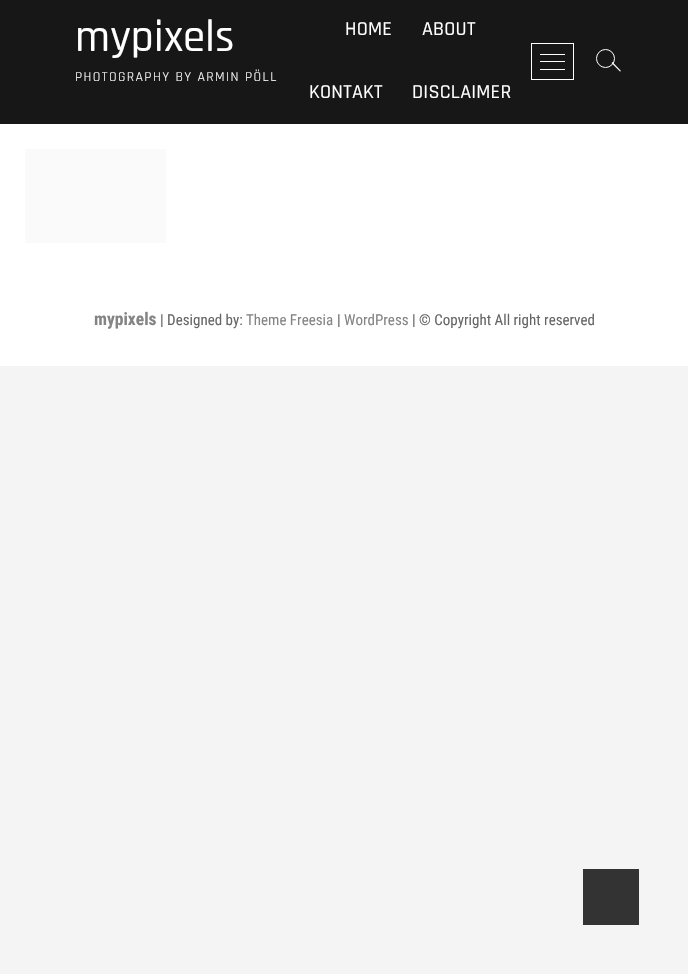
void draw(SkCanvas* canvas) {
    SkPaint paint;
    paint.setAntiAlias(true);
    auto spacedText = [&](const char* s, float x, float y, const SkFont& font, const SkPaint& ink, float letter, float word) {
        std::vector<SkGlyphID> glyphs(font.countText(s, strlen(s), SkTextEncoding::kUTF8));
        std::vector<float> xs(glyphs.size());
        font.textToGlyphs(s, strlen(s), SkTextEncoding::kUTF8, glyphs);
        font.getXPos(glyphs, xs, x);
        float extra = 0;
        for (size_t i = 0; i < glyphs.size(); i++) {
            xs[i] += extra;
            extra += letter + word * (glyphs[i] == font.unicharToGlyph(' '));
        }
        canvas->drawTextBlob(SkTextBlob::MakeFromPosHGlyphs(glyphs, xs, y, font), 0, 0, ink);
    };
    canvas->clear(0xFFF4F4F4);
    paint.setColor(0xFFFFFFFF);
    canvas->drawRect(SkRect::MakeXYWH(0, 124, 688, 242), paint);
    paint.setColor(0xFF171717);
    canvas->drawRect(SkRect::MakeXYWH(0, 0, 688, 124), paint);
    SkFont font1(fontMgr->matchFamilyStyle("Rajdhani", SkFontStyle(500, SkFontStyle::kNormal_Width, SkFontStyle::kUpright_Slant)), 45);
    font1.setSubpixel(true);
    paint.setColor(0xFFFFFFFF);
    canvas->drawString("mypixels", 75, 51, font1, paint);
    SkFont font2(fontMgr->matchFamilyStyle("Rajdhani", SkFontStyle::Normal()), 13.75f);
    font2.setSubpixel(true);
    spacedText("PHOTOGRAPHY BY ARMIN PÖLL", 75, 81, font2, paint, 1.4f, 0);
    SkFont font3(fontMgr->matchFamilyStyle("Rajdhani", SkFontStyle(500, SkFontStyle::kNormal_Width, SkFontStyle::kUpright_Slant)), 20);
    font3.setSubpixel(true);
    spacedText("HOME", 345, 35, font3, paint, 0.25f, 0);
    spacedText("ABOUT", 422, 35, font3, paint, 0.25f, 0);
    spacedText("KONTAKT", 309, 98, font3, paint, 0.25f, 0);
    spacedText("DISCLAIMER", 412, 98, font3, paint, 0.25f, 0);
    paint.setStyle(SkPaint::kStroke_Style);
    paint.setStrokeWidth(1);
    canvas->drawRect(SkRect::MakeXYWH(531.5f, 43.5f, 42, 36), paint);
    paint.setStyle(SkPaint::kFill_Style);
    canvas->drawRect(SkRect::MakeXYWH(540, 61, 25, 1), paint);
    canvas->drawRect(SkRect::MakeXYWH(540, 54, 25, 1), paint);
    canvas->drawRect(SkRect::MakeXYWH(540, 69, 25, 1), paint);
    paint.setStyle(SkPaint::kStroke_Style);
    canvas->drawCircle(605.5f, 58.5f, 9, paint);
    paint.setStyle(SkPaint::kFill_Style);
    canvas->drawPath(SkPathBuilder().moveTo(611.5f, 63).lineTo(612.5f, 62).lineTo(621, 71).lineTo(620, 71.5f).close().detach(), paint);
    paint.setColor(0xFFFAFAFA);
    canvas->drawRect(SkRect::MakeXYWH(25, 149, 141, 94), paint);
    SkFont font4(fontMgr->matchFamilyStyle("Roboto Condensed", SkFontStyle::Bold()), 17.5f);
    font4.setSubpixel(true);
    paint.setColor(0xFF848484);
    canvas->drawString("mypixels", 94, 325, font4, paint);
    SkFont font5(fontMgr->matchFamilyStyle("Roboto Condensed", SkFontStyle::Normal()), 15);
    font5.setSubpixel(true);
    paint.setColor(0xFF666666);
    canvas->drawString("| Designed by:", 160, 325, font5, paint);
    paint.setColor(0xFF848484);
    canvas->drawString("Theme Freesia", 246, 325, font5, paint);
    paint.setColor(0xFF666666);
    canvas->drawString("|", 337, 325, font5, paint);
    paint.setColor(0xFF848484);
    canvas->drawString("WordPress", 344, 325, font5, paint);
    paint.setColor(0xFF666666);
    canvas->drawString("| © Copyright All right reserved", 412, 325, font5, paint);
    paint.setColor(0xFF333333);
    canvas->drawRect(SkRect::MakeXYWH(583, 869, 56, 56), paint);
}
